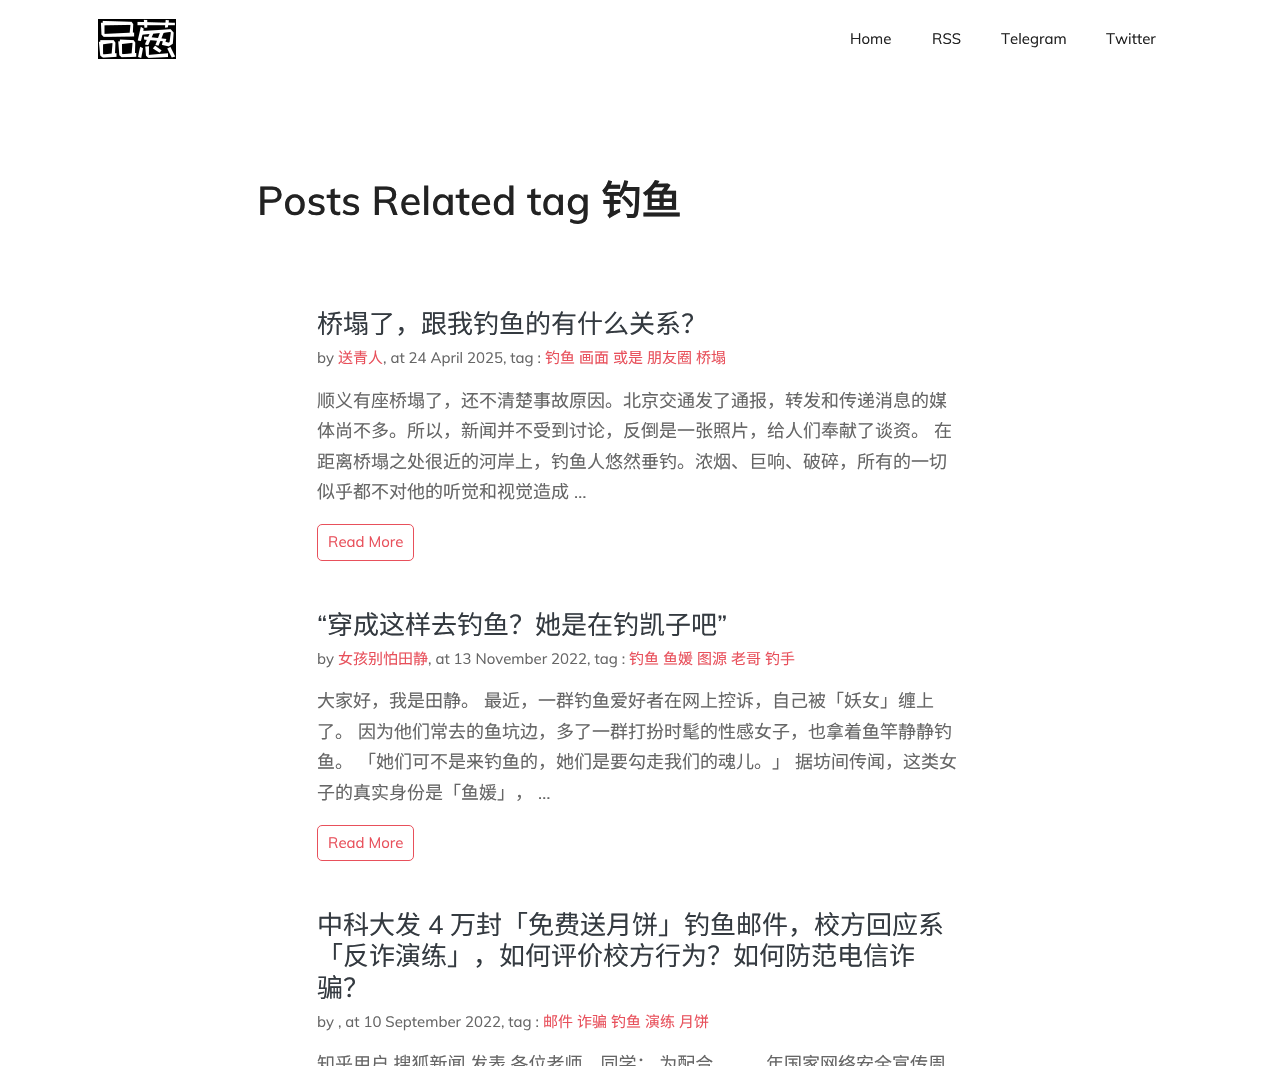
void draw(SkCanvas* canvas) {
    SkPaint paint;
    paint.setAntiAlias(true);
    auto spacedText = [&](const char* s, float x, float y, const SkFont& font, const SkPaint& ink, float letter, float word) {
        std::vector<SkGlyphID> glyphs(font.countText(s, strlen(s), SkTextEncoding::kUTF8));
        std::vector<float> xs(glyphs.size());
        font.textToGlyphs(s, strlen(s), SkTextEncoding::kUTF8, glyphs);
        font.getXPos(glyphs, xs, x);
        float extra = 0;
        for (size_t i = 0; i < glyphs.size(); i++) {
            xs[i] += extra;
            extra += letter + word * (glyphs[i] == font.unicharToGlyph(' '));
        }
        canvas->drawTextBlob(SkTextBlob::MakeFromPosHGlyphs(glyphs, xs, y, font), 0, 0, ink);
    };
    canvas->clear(0xFFFFFFFF);
    canvas->drawImageRect(SkImages::DeferredFromEncodedData(SkData::MakeFromFileName("img1.png")), SkRect::MakeXYWH(98, 19, 78, 40), SkSamplingOptions());
    SkFont font1(fontMgr->matchFamilyStyle("Muli", SkFontStyle::Normal()), 15);
    font1.setSubpixel(true);
    paint.setColor(0xFF222222);
    canvas->drawString("Home", 850, 44, font1, paint);
    canvas->drawString("RSS", 932, 44, font1, paint);
    canvas->drawString("Telegram", 1001, 44, font1, paint);
    canvas->drawString("Twitter", 1106, 44, font1, paint);
    SkFont font2(fontMgr->matchFamilyStyle("Muli", SkFontStyle(600, SkFontStyle::kNormal_Width, SkFontStyle::kUpright_Slant)), 40);
    font2.setSubpixel(true);
    canvas->drawString("Posts Related tag", 257, 215, font2, paint);
    SkFont font3(fontMgr->matchFamilyStyle("Noto Sans CJK SC", SkFontStyle::Bold()), 40);
    font3.setSubpixel(true);
    canvas->drawString("钓鱼", 601, 215, font3, paint);
    SkFont font4(fontMgr->matchFamilyStyle("Noto Sans CJK SC", SkFontStyle::Normal()), 26);
    font4.setSubpixel(true);
    paint.setColor(0xFF343A40);
    canvas->drawString("桥塌了，跟我钓鱼的有什么关系？", 317, 333, font4, paint);
    paint.setColor(0xFF666666);
    canvas->drawString("by", 317, 363, font1, paint);
    SkFont font5(fontMgr->matchFamilyStyle("Noto Sans CJK SC", SkFontStyle::Normal()), 15);
    font5.setSubpixel(true);
    paint.setColor(0xFFE8505B);
    canvas->drawString("送青人", 338, 363, font5, paint);
    paint.setColor(0xFF666666);
    canvas->drawString(", at 24 April 2025, tag :", 383, 363, font1, paint);
    paint.setColor(0xFFE8505B);
    canvas->drawString("钓鱼", 545, 363, font5, paint);
    canvas->drawString("画面", 579, 363, font5, paint);
    canvas->drawString("或是", 613, 363, font5, paint);
    canvas->drawString("朋友圈", 647, 363, font5, paint);
    canvas->drawString("桥塌", 696, 363, font5, paint);
    SkFont font6(fontMgr->matchFamilyStyle("Noto Sans CJK SC", SkFontStyle::Normal()), 18);
    font6.setSubpixel(true);
    paint.setColor(0xFF666666);
    canvas->drawString("顺义有座桥塌了，还不清楚事故原因。北京交通发了通报，转发和传递消息的媒", 317, 407, font6, paint);
    spacedText("体尚不多。所以，新闻并不受到讨论，反倒是一张照片，给人们奉献了谈资。 在", 317, 437, font6, paint, 0, 1);
    canvas->drawString("距离桥塌之处很近的河岸上，钓鱼人悠然垂钓。浓烟、巨响、破碎，所有的一切", 317, 468, font6, paint);
    canvas->drawString("似乎都不对他的听觉和视觉造成", 317, 498, font6, paint);
    SkFont font7(fontMgr->matchFamilyStyle("Muli", SkFontStyle::Normal()), 18);
    font7.setSubpixel(true);
    canvas->drawString("…", 574, 498, font7, paint);
    paint.setStyle(SkPaint::kStroke_Style);
    paint.setStrokeWidth(1);
    paint.setColor(0xFFE8505B);
    canvas->drawRoundRect(SkRect::MakeXYWH(317.5f, 524.5f, 96, 36), 4.5f, 4.5f, paint);
    paint.setStyle(SkPaint::kFill_Style);
    canvas->drawString("Read More", 328, 547, font1, paint);
    SkFont font8(fontMgr->matchFamilyStyle("Muli", SkFontStyle::Normal()), 26);
    font8.setSubpixel(true);
    paint.setColor(0xFF343A40);
    canvas->drawString("“", 317, 634, font8, paint);
    canvas->drawString("穿成这样去钓鱼？她是在钓凯子吧", 327, 634, font4, paint);
    canvas->drawString("”", 717, 634, font8, paint);
    paint.setColor(0xFF666666);
    canvas->drawString("by", 317, 664, font1, paint);
    paint.setColor(0xFFE8505B);
    canvas->drawString("女孩别怕田静", 338, 664, font5, paint);
    paint.setColor(0xFF666666);
    canvas->drawString(", at 13 November 2022, tag :", 428, 664, font1, paint);
    paint.setColor(0xFFE8505B);
    canvas->drawString("钓鱼", 629, 664, font5, paint);
    canvas->drawString("鱼媛", 663, 664, font5, paint);
    canvas->drawString("图源", 697, 664, font5, paint);
    canvas->drawString("老哥", 731, 664, font5, paint);
    canvas->drawString("钓手", 765, 664, font5, paint);
    paint.setColor(0xFF666666);
    spacedText("大家好，我是田静。 最近，一群钓鱼爱好者在网上控诉，自己被「妖女」缠上", 317, 707, font6, paint, 0, 1);
    spacedText("了。 因为他们常去的鱼坑边，多了一群打扮时髦的性感女子，也拿着鱼竿静静钓", 317, 738, font6, paint, 0, 1);
    spacedText("鱼。 「她们可不是来钓鱼的，她们是要勾走我们的魂儿。」 据坊间传闻，这类女", 317, 768, font6, paint, 0, 1);
    canvas->drawString("子的真实身份是「鱼媛」，", 317, 799, font6, paint);
    canvas->drawString("…", 538, 799, font7, paint);
    paint.setStyle(SkPaint::kStroke_Style);
    paint.setColor(0xFFE8505B);
    canvas->drawRoundRect(SkRect::MakeXYWH(317.5f, 825.5f, 96, 35), 4.5f, 4.5f, paint);
    paint.setStyle(SkPaint::kFill_Style);
    canvas->drawString("Read More", 328, 848, font1, paint);
    paint.setColor(0xFF343A40);
    canvas->drawString("中科大发", 317, 934, font4, paint);
    canvas->drawString("4", 428, 934, font8, paint);
    canvas->drawString("万封「免费送月饼」钓鱼邮件，校方回应系", 450, 934, font4, paint);
    canvas->drawString("「反诈演练」，如何评价校方行为？如何防范电信诈", 317, 965, font4, paint);
    canvas->drawString("骗？", 317, 997, font4, paint);
    paint.setColor(0xFF666666);
    canvas->drawString("by , at 10 September 2022, tag :", 317, 1027, font1, paint);
    paint.setColor(0xFFE8505B);
    canvas->drawString("邮件", 543, 1027, font5, paint);
    canvas->drawString("诈骗", 577, 1027, font5, paint);
    canvas->drawString("钓鱼", 611, 1027, font5, paint);
    canvas->drawString("演练", 645, 1027, font5, paint);
    canvas->drawString("月饼", 679, 1027, font5, paint);
    paint.setColor(0xFF666666);
    spacedText("知乎用户 搜狐新闻 发表 各位老师、同学： 为配合", 317, 1070, font6, paint, 0, 0.5f);
    canvas->drawString("年国家网络安全宣传周", 766, 1070, font6, paint);
}
